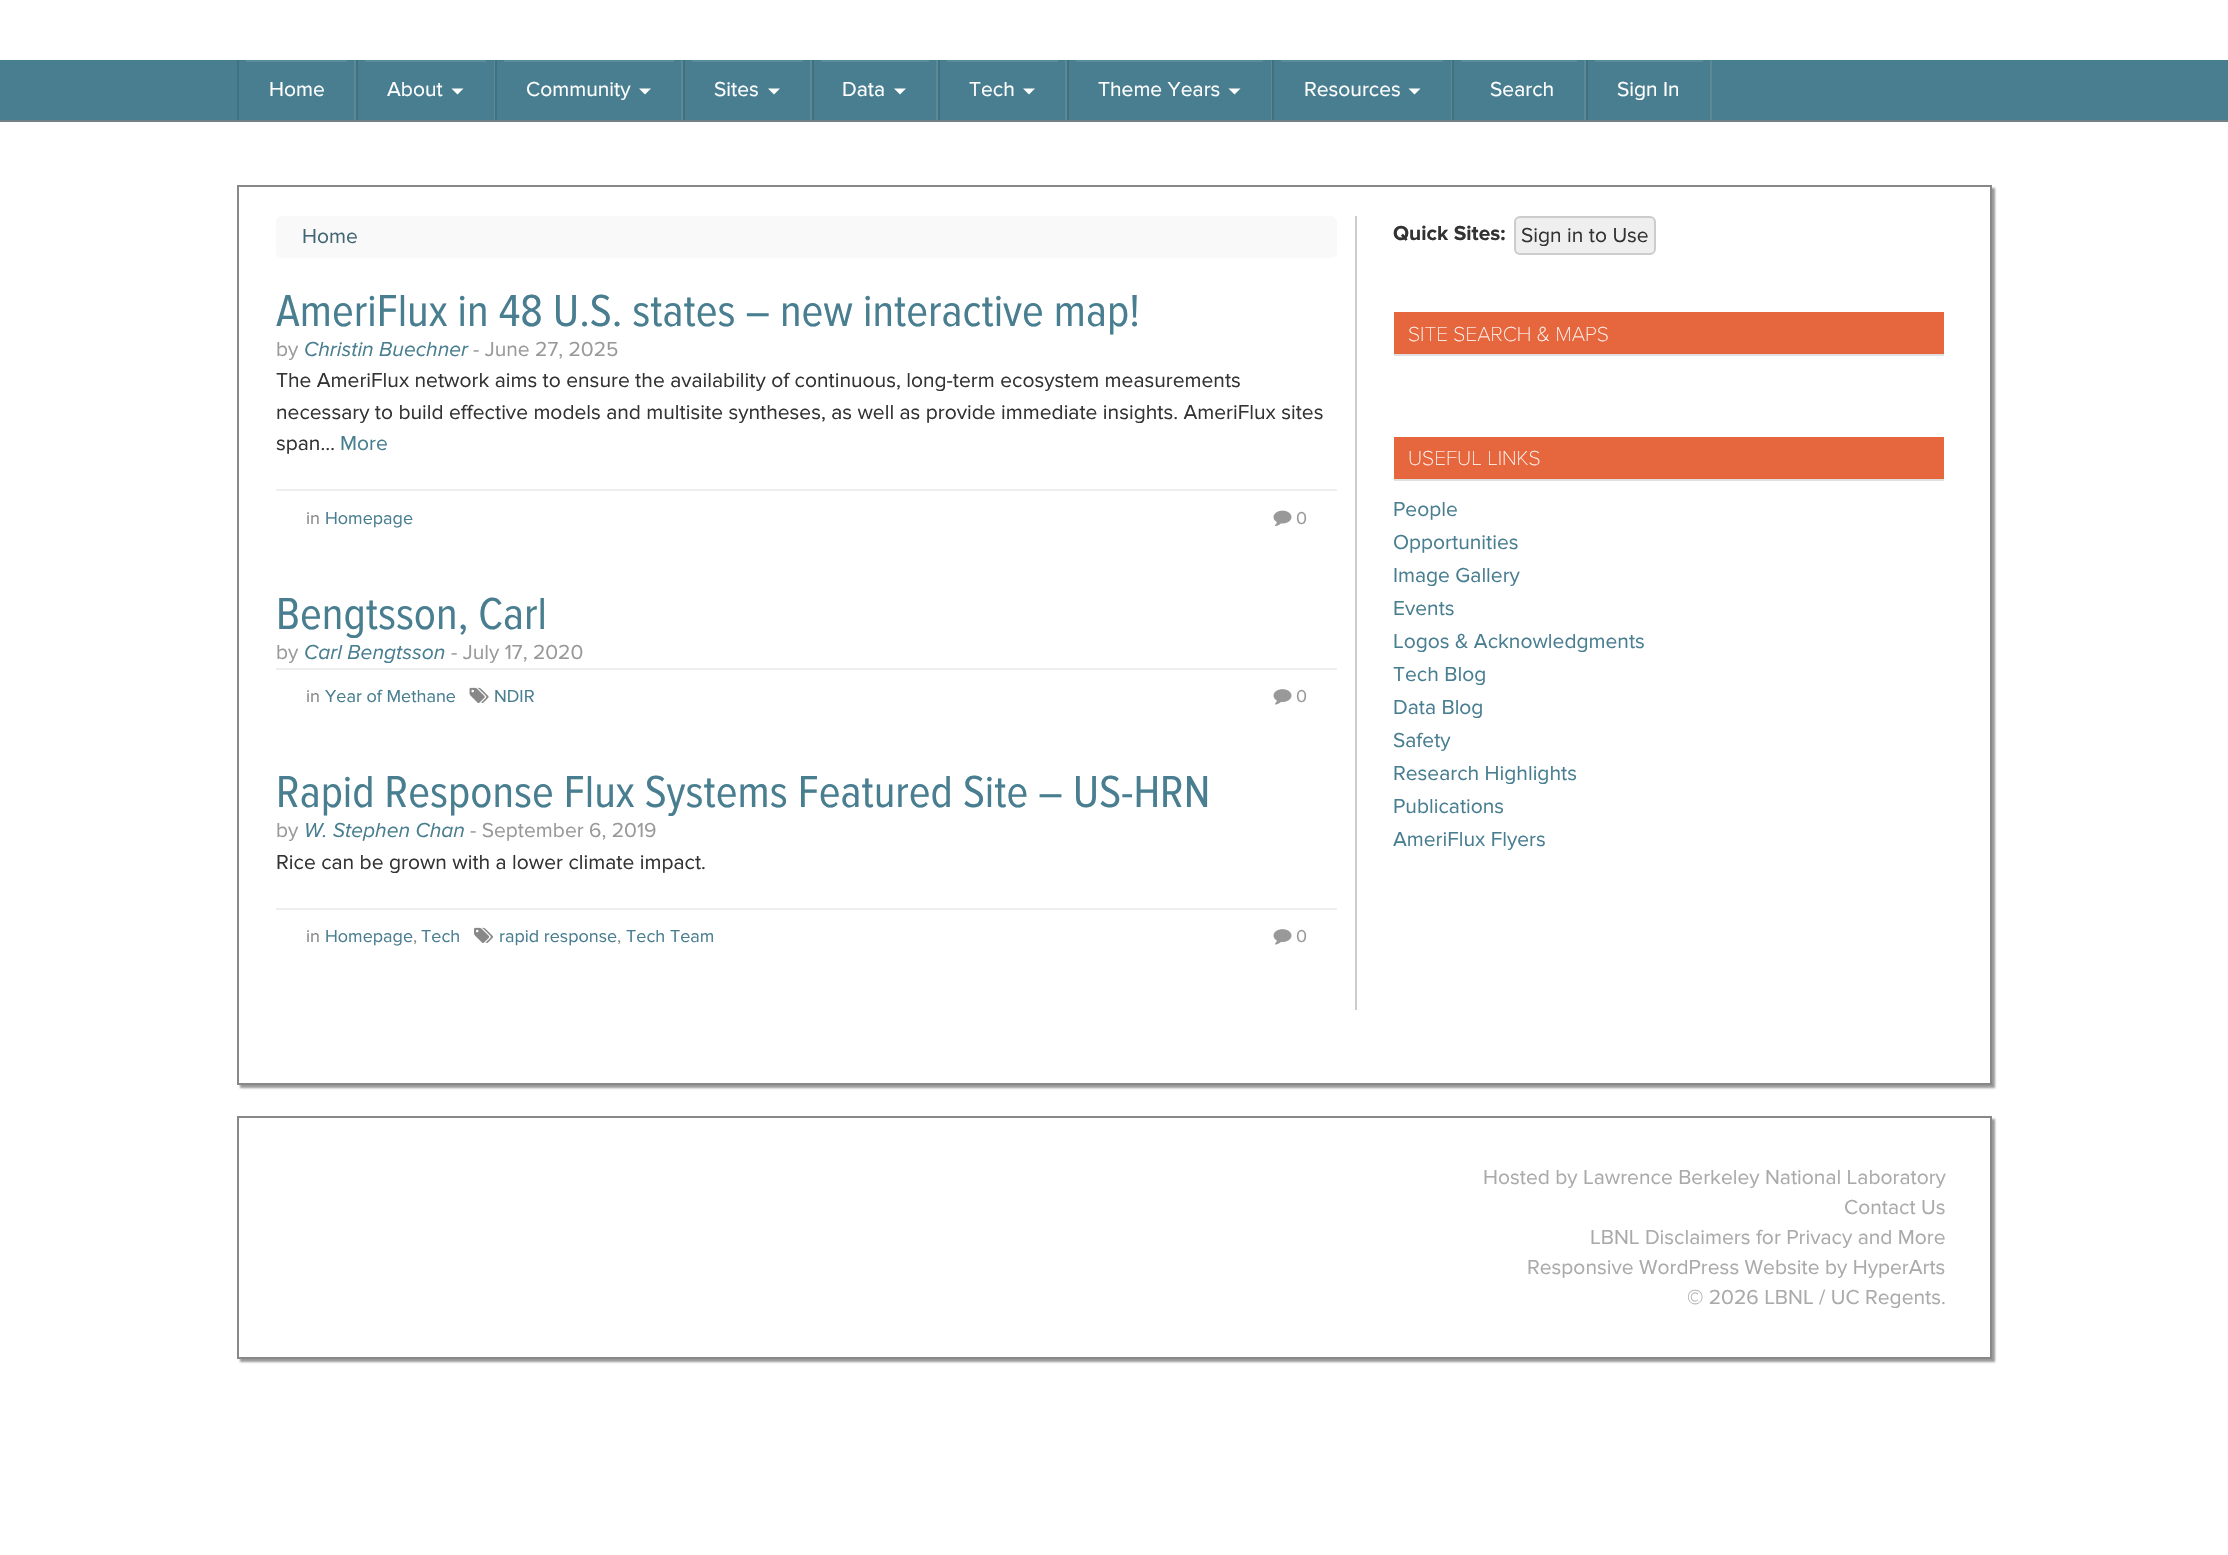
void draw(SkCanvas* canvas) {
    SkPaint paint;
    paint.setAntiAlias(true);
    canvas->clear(0xFFFFFFFF);
    paint.setColor(0xFF487E90);
    canvas->drawRect(SkRect::MakeXYWH(0, 60, 2228, 60), paint);
    paint.setColor(0xFF727F84);
    canvas->drawRect(SkRect::MakeXYWH(0, 120, 2228, 2), paint);
    paint.setColor(0xFF5B8996);
    canvas->drawRect(SkRect::MakeXYWH(354, 60, 2, 60), paint);
    paint.setColor(0xFF407180);
    canvas->drawRect(SkRect::MakeXYWH(237, 60, 2, 60), paint);
    paint.setColor(0xFF5A8B9B);
    canvas->drawRect(SkRect::MakeXYWH(246, 60, 101, 2), paint);
    SkFont font1(fontMgr->matchFamilyStyle("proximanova", SkFontStyle::Normal()), 21);
    font1.setSubpixel(true);
    paint.setColor(0xFFFFFFFF);
    canvas->drawString("Home", 269, 96, font1, paint);
    paint.setColor(0xFF5B8996);
    canvas->drawRect(SkRect::MakeXYWH(494, 60, 1, 60), paint);
    paint.setColor(0xFF407180);
    canvas->drawRect(SkRect::MakeXYWH(356, 60, 2, 60), paint);
    paint.setColor(0xFF5A8B9B);
    canvas->drawRect(SkRect::MakeXYWH(365, 60, 121, 2), paint);
    paint.setColor(0xFFFFFFFF);
    canvas->drawString("About", 387, 96, font1, paint);
    canvas->drawPath(SkPathBuilder().moveTo(451.5f, 88.5f).lineTo(463.5f, 88.5f).lineTo(457.5f, 94.5f).close().detach(), paint);
    paint.setColor(0xFF5B8996);
    canvas->drawRect(SkRect::MakeXYWH(681, 60, 2, 60), paint);
    paint.setColor(0xFF407180);
    canvas->drawRect(SkRect::MakeXYWH(495, 60, 2, 60), paint);
    paint.setColor(0xFF5A8B9B);
    canvas->drawRect(SkRect::MakeXYWH(504, 60, 170, 2), paint);
    paint.setColor(0xFFFFFFFF);
    canvas->drawString("Community", 526, 96, font1, paint);
    canvas->drawPath(SkPathBuilder().moveTo(639, 88.5f).lineTo(651, 88.5f).lineTo(645, 94.5f).close().detach(), paint);
    paint.setColor(0xFF5B8996);
    canvas->drawRect(SkRect::MakeXYWH(810, 60, 2, 60), paint);
    paint.setColor(0xFF407180);
    canvas->drawRect(SkRect::MakeXYWH(683, 60, 2, 60), paint);
    paint.setColor(0xFF5A8B9B);
    canvas->drawRect(SkRect::MakeXYWH(692, 60, 111, 2), paint);
    paint.setColor(0xFFFFFFFF);
    canvas->drawString("Sites", 714, 96, font1, paint);
    canvas->drawPath(SkPathBuilder().moveTo(768, 88.5f).lineTo(780, 88.5f).lineTo(774, 94.5f).close().detach(), paint);
    paint.setColor(0xFF5B8996);
    canvas->drawRect(SkRect::MakeXYWH(936, 60, 2, 60), paint);
    paint.setColor(0xFF407180);
    canvas->drawRect(SkRect::MakeXYWH(812, 60, 2, 60), paint);
    paint.setColor(0xFF5A8B9B);
    canvas->drawRect(SkRect::MakeXYWH(821, 60, 108, 2), paint);
    paint.setColor(0xFFFFFFFF);
    canvas->drawString("Data", 842, 96, font1, paint);
    canvas->drawPath(SkPathBuilder().moveTo(894, 88.5f).lineTo(906, 88.5f).lineTo(900, 94.5f).close().detach(), paint);
    paint.setColor(0xFF5B8996);
    canvas->drawRect(SkRect::MakeXYWH(1065, 60, 2, 60), paint);
    paint.setColor(0xFF407180);
    canvas->drawRect(SkRect::MakeXYWH(938, 60, 2, 60), paint);
    paint.setColor(0xFF5A8B9B);
    canvas->drawRect(SkRect::MakeXYWH(947, 60, 111, 2), paint);
    paint.setColor(0xFFFFFFFF);
    canvas->drawString("Tech", 969, 96, font1, paint);
    canvas->drawPath(SkPathBuilder().moveTo(1023, 88.5f).lineTo(1035, 88.5f).lineTo(1029, 94.5f).close().detach(), paint);
    paint.setColor(0xFF5B8996);
    canvas->drawRect(SkRect::MakeXYWH(1271, 60, 1, 60), paint);
    paint.setColor(0xFF407180);
    canvas->drawRect(SkRect::MakeXYWH(1067, 60, 2, 60), paint);
    paint.setColor(0xFF5A8B9B);
    canvas->drawRect(SkRect::MakeXYWH(1076, 60, 187, 2), paint);
    paint.setColor(0xFFFFFFFF);
    canvas->drawString("Theme Years", 1098, 96, font1, paint);
    canvas->drawPath(SkPathBuilder().moveTo(1228.5f, 88.5f).lineTo(1240.5f, 88.5f).lineTo(1234.5f, 94.5f).close().detach(), paint);
    paint.setColor(0xFF5B8996);
    canvas->drawRect(SkRect::MakeXYWH(1451, 60, 1, 60), paint);
    paint.setColor(0xFF407180);
    canvas->drawRect(SkRect::MakeXYWH(1272, 60, 2, 60), paint);
    paint.setColor(0xFF5A8B9B);
    canvas->drawRect(SkRect::MakeXYWH(1281, 60, 162, 2), paint);
    paint.setColor(0xFFFFFFFF);
    canvas->drawString("Resources", 1304, 96, font1, paint);
    canvas->drawPath(SkPathBuilder().moveTo(1408.5f, 88.5f).lineTo(1420.5f, 88.5f).lineTo(1414.5f, 94.5f).close().detach(), paint);
    paint.setColor(0xFF5B8996);
    canvas->drawRect(SkRect::MakeXYWH(1584, 60, 2, 60), paint);
    paint.setColor(0xFF407180);
    canvas->drawRect(SkRect::MakeXYWH(1452, 60, 2, 60), paint);
    paint.setColor(0xFF5A8B9B);
    canvas->drawRect(SkRect::MakeXYWH(1461, 60, 116, 2), paint);
    paint.setColor(0xFFFFFFFF);
    canvas->drawString("Search", 1490, 96, font1, paint);
    paint.setColor(0xFF5B8996);
    canvas->drawRect(SkRect::MakeXYWH(1710, 60, 2, 60), paint);
    paint.setColor(0xFF407180);
    canvas->drawRect(SkRect::MakeXYWH(1586, 60, 2, 60), paint);
    paint.setColor(0xFF5A8B9B);
    canvas->drawRect(SkRect::MakeXYWH(1595, 60, 108, 2), paint);
    paint.setColor(0xFFFFFFFF);
    canvas->drawString("Sign In", 1617, 96, font1, paint);
    paint.setColor(0xFF999999);
    paint.setMaskFilter(SkMaskFilter::MakeBlur(kNormal_SkBlurStyle, 1));
    canvas->drawRect(SkRect::MakeXYWH(240, 188, 1755, 900), paint);
    paint.setMaskFilter(nullptr);
    paint.setColor(0xFFFFFFFF);
    canvas->drawRect(SkRect::MakeXYWH(238, 186, 1753, 898), paint);
    paint.setStyle(SkPaint::kStroke_Style);
    paint.setStrokeWidth(2);
    paint.setColor(0xFF888888);
    canvas->drawRect(SkRect::MakeXYWH(238, 186, 1753, 898), paint);
    paint.setStyle(SkPaint::kFill_Style);
    paint.setColor(0xFFCCCCCC);
    canvas->drawRect(SkRect::MakeXYWH(1355, 216, 2, 794), paint);
    paint.setColor(0xFFF9F9F9);
    canvas->drawRoundRect(SkRect::MakeXYWH(276, 216, 1061, 42), 6, 6, paint);
    paint.setColor(0xFF416775);
    canvas->drawString("Home", 302, 243, font1, paint);
    SkFont font2(fontMgr->matchFamilyStyle("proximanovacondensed", SkFontStyle::Normal()), 46.5f);
    font2.setSubpixel(true);
    paint.setColor(0xFF487E90);
    canvas->drawString("AmeriFlux in 48 U.S. states – new interactive map!", 276, 326, font2, paint);
    paint.setColor(0xFF999999);
    canvas->drawString("by", 276, 356, font1, paint);
    SkFont font3(fontMgr->matchFamilyStyle("proximanova", SkFontStyle::Italic()), 21);
    font3.setSubpixel(true);
    paint.setColor(0xFF487E90);
    canvas->drawString("Christin Buechner", 304, 356, font3, paint);
    paint.setColor(0xFF999999);
    canvas->drawString("- June 27, 2025", 473, 356, font1, paint);
    paint.setColor(0xFF333333);
    canvas->drawString("The AmeriFlux network aims to ensure the availability of continuous, long-term ecosystem measurements", 276, 387, font1, paint);
    canvas->drawString("necessary to build effective models and multisite syntheses, as well as provide immediate insights. AmeriFlux sites", 276, 419, font1, paint);
    canvas->drawString("span…", 276, 450, font1, paint);
    paint.setColor(0xFF487E90);
    canvas->drawString("More", 340, 450, font1, paint);
    paint.setColor(0xFFEEEEEE);
    canvas->drawRect(SkRect::MakeXYWH(276, 489, 1061, 2), paint);
    SkFont font4(fontMgr->matchFamilyStyle("proximanova", SkFontStyle::Normal()), 18);
    font4.setSubpixel(true);
    paint.setColor(0xFF888888);
    canvas->drawString("in", 306, 524, font4, paint);
    paint.setColor(0xFF487E90);
    canvas->drawString("Homepage", 325, 524, font4, paint);
    canvas->drawImageRect(SkImages::DeferredFromEncodedData(SkData::MakeFromFileName("img1.png")), SkRect::MakeXYWH(1273, 510, 19, 16), SkSamplingOptions());
    paint.setColor(0xFF999999);
    canvas->drawString("0", 1296, 524, font4, paint);
    paint.setColor(0xFF487E90);
    canvas->drawString("Bengtsson, Carl", 276, 629, font2, paint);
    paint.setColor(0xFF999999);
    canvas->drawString("by", 276, 659, font1, paint);
    paint.setColor(0xFF487E90);
    canvas->drawString("Carl Bengtsson", 304, 659, font3, paint);
    paint.setColor(0xFF999999);
    canvas->drawString("- July 17, 2020", 451, 659, font1, paint);
    paint.setColor(0xFFEEEEEE);
    canvas->drawRect(SkRect::MakeXYWH(276, 668, 1061, 2), paint);
    paint.setColor(0xFF888888);
    canvas->drawString("in", 306, 702, font4, paint);
    paint.setColor(0xFF487E90);
    canvas->drawString("Year of Methane", 325, 702, font4, paint);
    canvas->drawImageRect(SkImages::DeferredFromEncodedData(SkData::MakeFromFileName("img2.png")), SkRect::MakeXYWH(469, 687, 20, 16), SkSamplingOptions());
    canvas->drawString("NDIR", 494, 702, font4, paint);
    canvas->drawImageRect(SkImages::DeferredFromEncodedData(SkData::MakeFromFileName("img3.png")), SkRect::MakeXYWH(1273, 689, 19, 16), SkSamplingOptions());
    paint.setColor(0xFF999999);
    canvas->drawString("0", 1296, 702, font4, paint);
    paint.setColor(0xFF487E90);
    canvas->drawString("Rapid Response Flux Systems Featured Site – US-HRN", 276, 807, font2, paint);
    paint.setColor(0xFF999999);
    canvas->drawString("by", 276, 837, font1, paint);
    paint.setColor(0xFF487E90);
    canvas->drawString("W. Stephen Chan", 304, 837, font3, paint);
    paint.setColor(0xFF999999);
    canvas->drawString("- September 6, 2019", 470, 837, font1, paint);
    paint.setColor(0xFF333333);
    canvas->drawString("Rice can be grown with a lower climate impact.", 276, 869, font1, paint);
    paint.setColor(0xFFEEEEEE);
    canvas->drawRect(SkRect::MakeXYWH(276, 908, 1061, 2), paint);
    paint.setColor(0xFF888888);
    canvas->drawString("in", 306, 942, font4, paint);
    paint.setColor(0xFF487E90);
    canvas->drawString("Homepage", 325, 942, font4, paint);
    paint.setColor(0xFF888888);
    canvas->drawString(",", 413, 942, font4, paint);
    paint.setColor(0xFF487E90);
    canvas->drawString("Tech", 421, 942, font4, paint);
    canvas->drawImageRect(SkImages::DeferredFromEncodedData(SkData::MakeFromFileName("img4.png")), SkRect::MakeXYWH(474, 927, 19, 16), SkSamplingOptions());
    canvas->drawString("rapid response", 499, 942, font4, paint);
    paint.setColor(0xFF888888);
    canvas->drawString(",", 617, 942, font4, paint);
    paint.setColor(0xFF487E90);
    canvas->drawString("Tech Team", 626, 942, font4, paint);
    canvas->drawImageRect(SkImages::DeferredFromEncodedData(SkData::MakeFromFileName("img3.png")), SkRect::MakeXYWH(1273, 929, 19, 16), SkSamplingOptions());
    paint.setColor(0xFF999999);
    canvas->drawString("0", 1296, 942, font4, paint);
    SkFont font5(fontMgr->matchFamilyStyle("proximanova", SkFontStyle::Bold()), 21);
    font5.setSubpixel(true);
    paint.setColor(0xFF333333);
    canvas->drawString("Quick Sites:", 1393, 240, font5, paint);
    paint.setColor(0xFFEFEFEF);
    canvas->drawRoundRect(SkRect::MakeXYWH(1515, 217, 140, 37), 5, 5, paint);
    paint.setStyle(SkPaint::kStroke_Style);
    paint.setColor(0xFFCCCCCC);
    canvas->drawRoundRect(SkRect::MakeXYWH(1515, 217, 140, 37), 5, 5, paint);
    paint.setStyle(SkPaint::kFill_Style);
    paint.setColor(0xFF333333);
    canvas->drawString("Sign in to Use", 1521, 242, font1, paint);
    paint.setColor(0xFFE6673D);
    canvas->drawRect(SkRect::MakeXYWH(1394, 312, 550, 42), paint);
    paint.setColor(0xFFE0E0E0);
    canvas->drawRect(SkRect::MakeXYWH(1394, 354, 550, 2), paint);
    SkFont font6(fontMgr->matchFamilyStyle("proximanova", SkFontStyle(300, SkFontStyle::kNormal_Width, SkFontStyle::kUpright_Slant)), 21);
    font6.setSubpixel(true);
    paint.setColor(0xFFFFFFFF);
    canvas->drawString("SITE SEARCH & MAPS", 1408, 341, font6, paint);
    paint.setColor(0xFFE6673D);
    canvas->drawRect(SkRect::MakeXYWH(1394, 437, 550, 42), paint);
    paint.setColor(0xFFE0E0E0);
    canvas->drawRect(SkRect::MakeXYWH(1394, 479, 550, 2), paint);
    paint.setColor(0xFFFFFFFF);
    canvas->drawString("USEFUL LINKS", 1408, 465, font6, paint);
    paint.setColor(0xFF487E90);
    canvas->drawString("People", 1393, 516, font1, paint);
    canvas->drawString("Opportunities", 1393, 549, font1, paint);
    canvas->drawString("Image Gallery", 1393, 582, font1, paint);
    canvas->drawString("Events", 1393, 615, font1, paint);
    canvas->drawString("Logos & Acknowledgments", 1393, 648, font1, paint);
    canvas->drawString("Tech Blog", 1393, 681, font1, paint);
    canvas->drawString("Data Blog", 1393, 714, font1, paint);
    canvas->drawString("Safety", 1393, 747, font1, paint);
    canvas->drawString("Research Highlights", 1393, 780, font1, paint);
    canvas->drawString("Publications", 1393, 813, font1, paint);
    canvas->drawString("AmeriFlux Flyers", 1393, 846, font1, paint);
    canvas->save();
    canvas->clipPath(SkPathBuilder(SkPathFillType::kEvenOdd).moveTo(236, 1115).lineTo(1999, 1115).lineTo(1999, 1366).lineTo(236, 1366).close().moveTo(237, 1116).lineTo(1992, 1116).lineTo(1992, 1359).lineTo(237, 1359).close().detach(), true);
    paint.setColor(0xFF999999);
    paint.setMaskFilter(SkMaskFilter::MakeBlur(kNormal_SkBlurStyle, 1));
    canvas->drawRect(SkRect::MakeXYWH(240, 1119, 1755, 243), paint);
    paint.setMaskFilter(nullptr);
    canvas->restore();
    paint.setStyle(SkPaint::kStroke_Style);
    paint.setColor(0xFF888888);
    canvas->drawRect(SkRect::MakeXYWH(238, 1117, 1753, 241), paint);
    paint.setStyle(SkPaint::kFill_Style);
    paint.setColor(0xFFAAAAAA);
    canvas->drawString("Hosted by Lawrence Berkeley National Laboratory", 1483, 1184, font1, paint);
    canvas->drawString("Contact Us", 1844, 1214, font1, paint);
    canvas->drawString("LBNL Disclaimers for Privacy and More", 1590, 1244, font1, paint);
    canvas->drawString("Responsive WordPress Website by HyperArts", 1527, 1274, font1, paint);
    canvas->drawString("© 2026 LBNL / UC Regents.", 1687, 1304, font1, paint);
}
